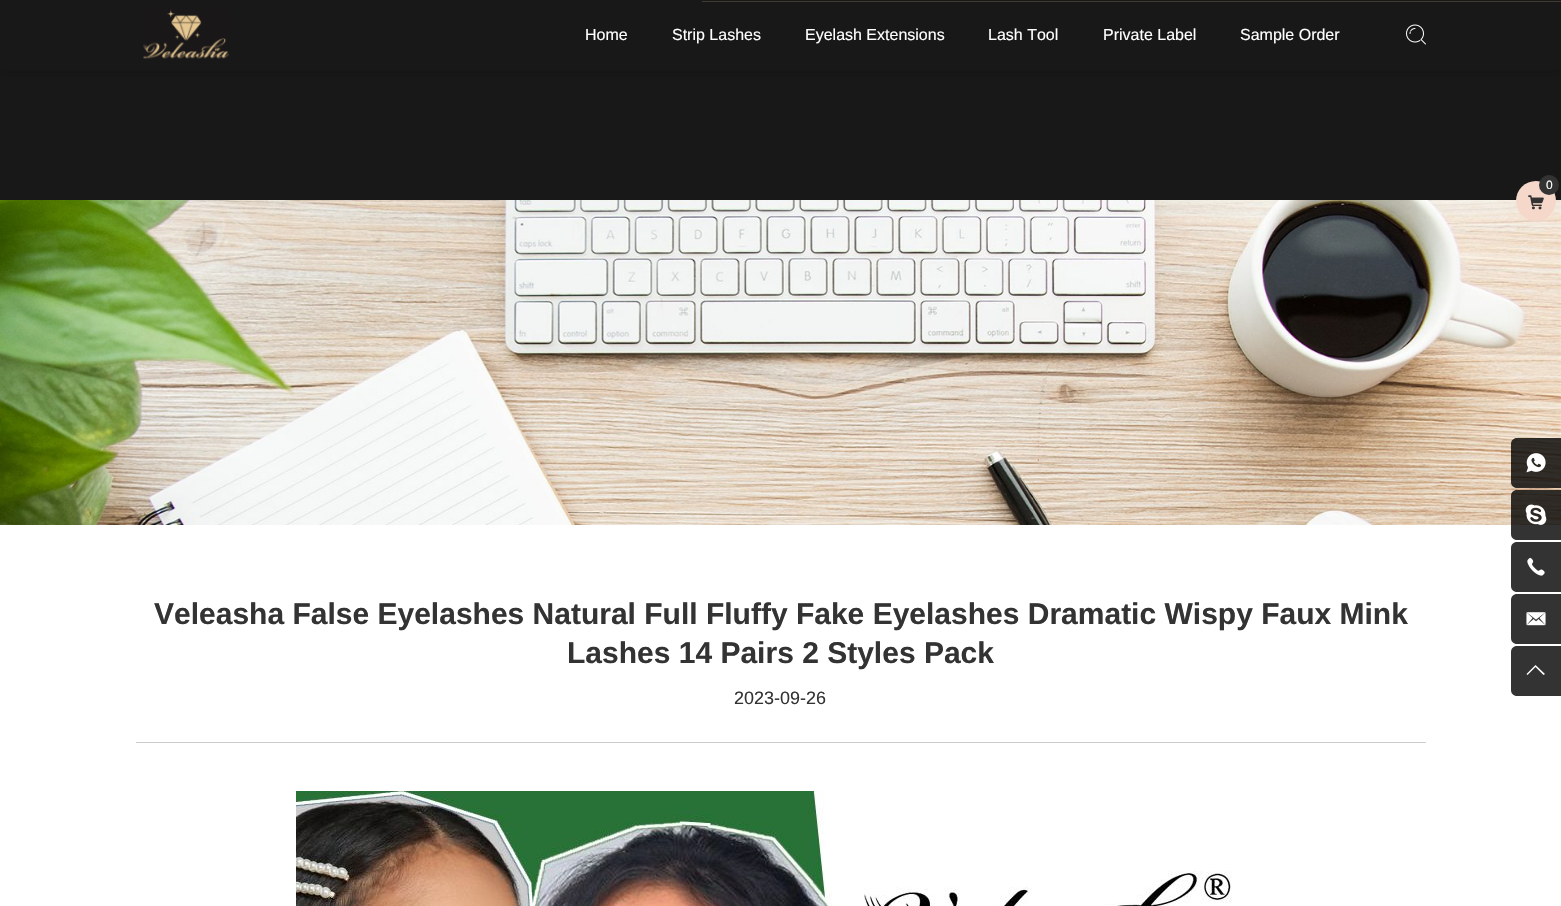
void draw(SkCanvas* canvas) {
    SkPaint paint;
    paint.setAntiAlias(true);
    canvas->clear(0xFFFFFFFF);
    paint.setColor(0xFF191818);
    canvas->drawRect(SkRect::MakeXYWH(0, 70, 1561, 130), paint);
    paint.setColor(0x33000000);
    paint.setMaskFilter(SkMaskFilter::MakeBlur(kNormal_SkBlurStyle, 5));
    canvas->drawRect(SkRect::MakeXYWH(0, 0, 1561, 70), paint);
    paint.setMaskFilter(nullptr);
    paint.setColor(0xFF191818);
    canvas->drawRect(SkRect::MakeXYWH(0, 0, 1561, 70), paint);
    paint.setColor(0xFF423B30);
    canvas->drawRect(SkRect::MakeXYWH(702, 1, 859, 1), paint);
    canvas->drawImageRect(SkImages::DeferredFromEncodedData(SkData::MakeFromFileName("img1.png")), SkRect::MakeXYWH(143, 9, 86, 50), SkSamplingOptions());
    SkFont font1(fontMgr->matchFamilyStyle("Liberation Sans", SkFontStyle::Normal()), 16);
    font1.setSubpixel(true);
    paint.setColor(0xFFFFFFFF);
    canvas->drawString("Home", 585, 40, font1, paint);
    canvas->drawString("Strip Lashes", 672, 40, font1, paint);
    canvas->drawString("Eyelash Extensions", 805, 40, font1, paint);
    canvas->drawString("Lash Tool", 988, 40, font1, paint);
    canvas->drawString("Private Label", 1103, 40, font1, paint);
    canvas->drawString("Sample Order", 1240, 40, font1, paint);
    canvas->drawImageRect(SkImages::DeferredFromEncodedData(SkData::MakeFromFileName("img2.png")), SkRect::MakeXYWH(1406, 24, 20, 21), SkSamplingOptions());
    canvas->drawImageRect(SkImages::DeferredFromEncodedData(SkData::MakeFromFileName("img4.png")), SkRect::MakeXYWH(0, 200, 1561, 325), SkSamplingOptions());
    paint.setColor(0xFFF6D8CB);
    canvas->drawCircle(1536, 201, 20, paint);
    paint.setColor(0xFF333333);
    canvas->drawCircle(1549, 185, 10, paint);
    SkFont font2(fontMgr->matchFamilyStyle("Liberation Sans", SkFontStyle::Normal()), 12);
    font2.setSubpixel(true);
    paint.setColor(0xFFFFFFFF);
    canvas->drawString("0", 1546, 189, font2, paint);
    canvas->drawImageRect(SkImages::DeferredFromEncodedData(SkData::MakeFromFileName("img3.png")), SkRect::MakeXYWH(1528, 195, 16, 15), SkSamplingOptions());
    SkFont font3(fontMgr->matchFamilyStyle("Liberation Sans", SkFontStyle::Bold()), 30);
    font3.setSubpixel(true);
    paint.setColor(0xFF333333);
    canvas->drawString("Veleasha False Eyelashes Natural Full Fluffy Fake Eyelashes Dramatic Wispy Faux Mink", 154, 624, font3, paint);
    canvas->drawString("Lashes 14 Pairs 2 Styles Pack", 567, 663, font3, paint);
    SkFont font4(fontMgr->matchFamilyStyle("Liberation Sans", SkFontStyle::Normal()), 18);
    font4.setSubpixel(true);
    canvas->drawString("2023-09-26", 734, 704, font4, paint);
    paint.setColor(0xFFCCCCCC);
    canvas->drawRect(SkRect::MakeXYWH(136, 742, 1290, 1), paint);
    canvas->drawImageRect(SkImages::DeferredFromEncodedData(SkData::MakeFromFileName("img5.png")), SkRect::MakeXYWH(296, 791, 936, 115), SkSamplingOptions());
    paint.setColor(0xCC000000);
    canvas->drawPath(SkPathBuilder().moveTo(1517, 438).lineTo(1561, 438).lineTo(1561, 488).lineTo(1517, 488).cubicTo(1513.5f, 488, 1511, 485.5f, 1511, 482).lineTo(1511, 444).cubicTo(1511, 440.5f, 1513.5f, 438, 1517, 438).close().detach(), paint);
    canvas->drawImageRect(SkImages::DeferredFromEncodedData(SkData::MakeFromFileName("img6.png")), SkRect::MakeXYWH(1526, 453, 20, 20), SkSamplingOptions());
    canvas->drawPath(SkPathBuilder().moveTo(1517, 490).lineTo(1561, 490).lineTo(1561, 540).lineTo(1517, 540).cubicTo(1513.5f, 540, 1511, 537.5f, 1511, 534).lineTo(1511, 496).cubicTo(1511, 492.5f, 1513.5f, 490, 1517, 490).close().detach(), paint);
    canvas->drawImageRect(SkImages::DeferredFromEncodedData(SkData::MakeFromFileName("img7.png")), SkRect::MakeXYWH(1525, 504, 22, 21), SkSamplingOptions());
    paint.setColor(0xFF333333);
    canvas->drawPath(SkPathBuilder().moveTo(1517, 542).lineTo(1561, 542).lineTo(1561, 592).lineTo(1517, 592).cubicTo(1513.5f, 592, 1511, 589.5f, 1511, 586).lineTo(1511, 548).cubicTo(1511, 544.5f, 1513.5f, 542, 1517, 542).close().detach(), paint);
    canvas->drawImageRect(SkImages::DeferredFromEncodedData(SkData::MakeFromFileName("img8.png")), SkRect::MakeXYWH(1527, 557, 18, 19), SkSamplingOptions());
    canvas->drawPath(SkPathBuilder().moveTo(1517, 594).lineTo(1561, 594).lineTo(1561, 644).lineTo(1517, 644).cubicTo(1513.5f, 644, 1511, 641.5f, 1511, 638).lineTo(1511, 600).cubicTo(1511, 596.5f, 1513.5f, 594, 1517, 594).close().detach(), paint);
    canvas->drawImageRect(SkImages::DeferredFromEncodedData(SkData::MakeFromFileName("img9.png")), SkRect::MakeXYWH(1526, 612, 20, 14), SkSamplingOptions());
    canvas->drawPath(SkPathBuilder().moveTo(1517, 646).lineTo(1561, 646).lineTo(1561, 696).lineTo(1517, 696).cubicTo(1513.5f, 696, 1511, 693.5f, 1511, 690).lineTo(1511, 652).cubicTo(1511, 648.5f, 1513.5f, 646, 1517, 646).close().detach(), paint);
    paint.setColor(0xFFFFFFFF);
    canvas->drawPath(SkPathBuilder().moveTo(1535.5f, 665).lineTo(1526.5f, 674).lineTo(1527.5f, 675).lineTo(1535.5f, 667).lineTo(1543.5f, 675).lineTo(1545, 674).close().detach(), paint);
}
